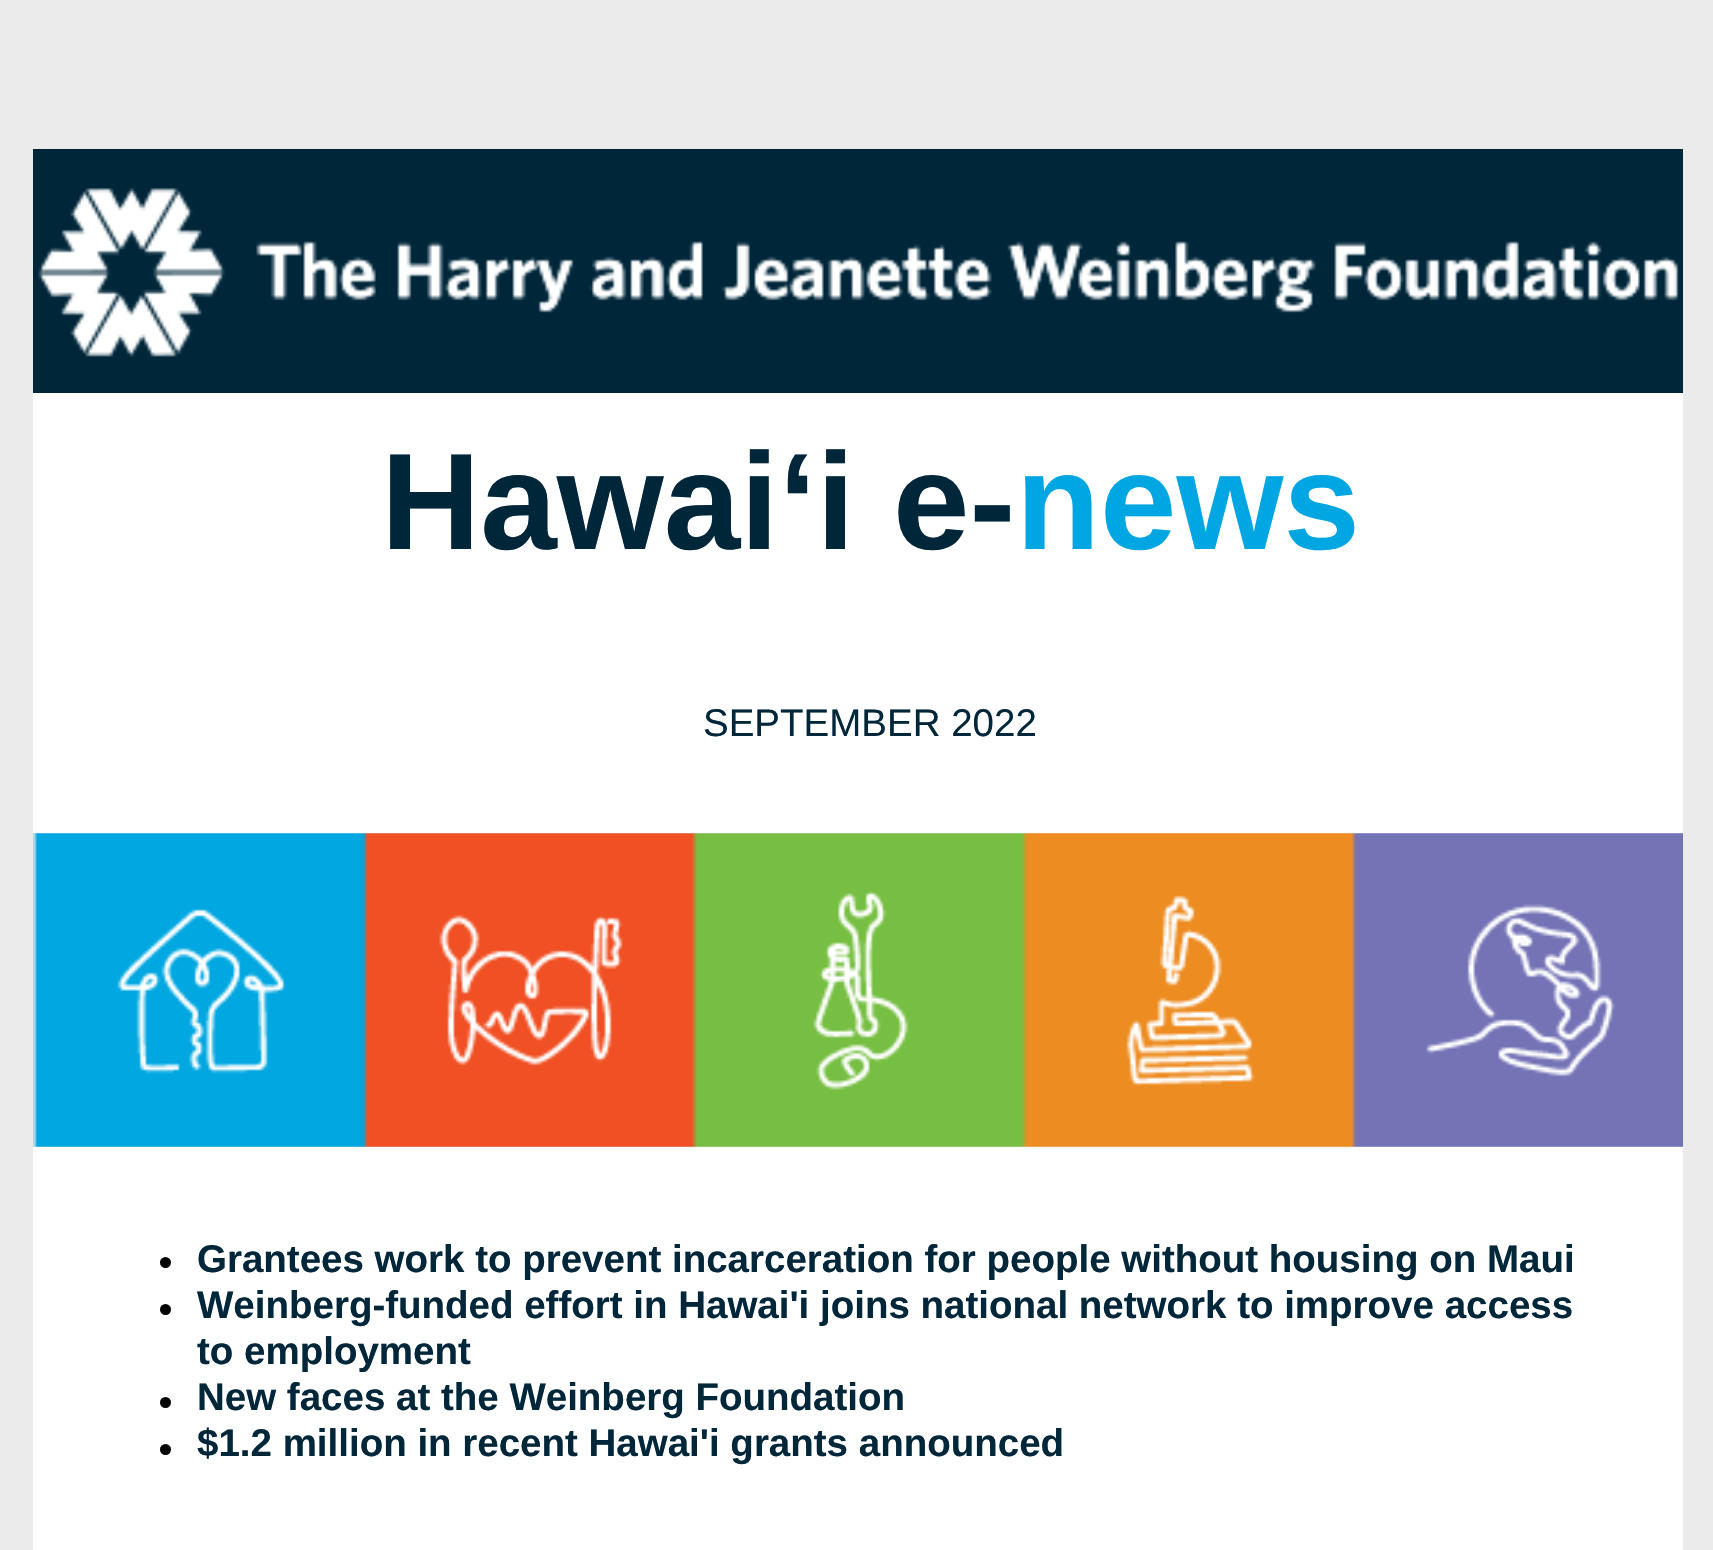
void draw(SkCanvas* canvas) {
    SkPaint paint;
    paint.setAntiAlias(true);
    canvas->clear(0xFFEBEBEB);
    paint.setColor(0xFF00263A);
    canvas->drawRect(SkRect::MakeXYWH(33, 149, 1650, 244), paint);
    canvas->drawImageRect(SkImages::DeferredFromEncodedData(SkData::MakeFromFileName("img1.png")), SkRect::MakeXYWH(38, 188, 1641, 169), SkSamplingOptions());
    paint.setColor(0xFFFFFFFF);
    canvas->drawRect(SkRect::MakeXYWH(33, 393, 1650, 440), paint);
    SkFont font1(fontMgr->matchFamilyStyle("Liberation Sans", SkFontStyle::Bold()), 137.5f);
    font1.setSubpixel(true);
    paint.setColor(0xFF00263A);
    canvas->drawString("Hawaiʻi e-", 381, 549, font1, paint);
    paint.setColor(0xFF00A6E2);
    canvas->drawString("news", 1016, 549, font1, paint);
    SkFont font2(fontMgr->matchFamilyStyle("Liberation Sans", SkFontStyle::Normal()), 38.5f);
    font2.setSubpixel(true);
    paint.setColor(0xFF00263A);
    canvas->drawString("SEPTEMBER 2022", 703, 736, font2, paint);
    canvas->drawImageRect(SkImages::DeferredFromEncodedData(SkData::MakeFromFileName("img2.png")), SkRect::MakeXYWH(33, 833, 1650, 314), SkSamplingOptions());
    paint.setColor(0xFFFFFFFF);
    canvas->drawRect(SkRect::MakeXYWH(33, 1147, 1650, 403), paint);
    paint.setColor(0xFF000000);
    canvas->drawCircle(165.5f, 1262.5f, 5.5f, paint);
    SkFont font3(fontMgr->matchFamilyStyle("Liberation Sans", SkFontStyle::Bold()), 38.5f);
    font3.setSubpixel(true);
    paint.setColor(0xFF00263A);
    canvas->drawString("Grantees work to prevent incarceration for people without housing on Maui", 197, 1272, font3, paint);
    paint.setColor(0xFF000000);
    canvas->drawCircle(165.5f, 1309.5f, 5.5f, paint);
    paint.setColor(0xFF00263A);
    canvas->drawString("Weinberg-funded effort in Hawai'i joins national network to improve access", 197, 1318, font3, paint);
    canvas->drawString("to employment", 197, 1364, font3, paint);
    paint.setColor(0xFF000000);
    canvas->drawCircle(165.5f, 1402.5f, 5.5f, paint);
    paint.setColor(0xFF00263A);
    canvas->drawString("New faces at the Weinberg Foundation", 197, 1410, font3, paint);
    paint.setColor(0xFF000000);
    canvas->drawCircle(165.5f, 1449.5f, 5.5f, paint);
    paint.setColor(0xFF00263A);
    canvas->drawString("$1.2 million in recent Hawai'i grants announced", 197, 1456, font3, paint);
}
